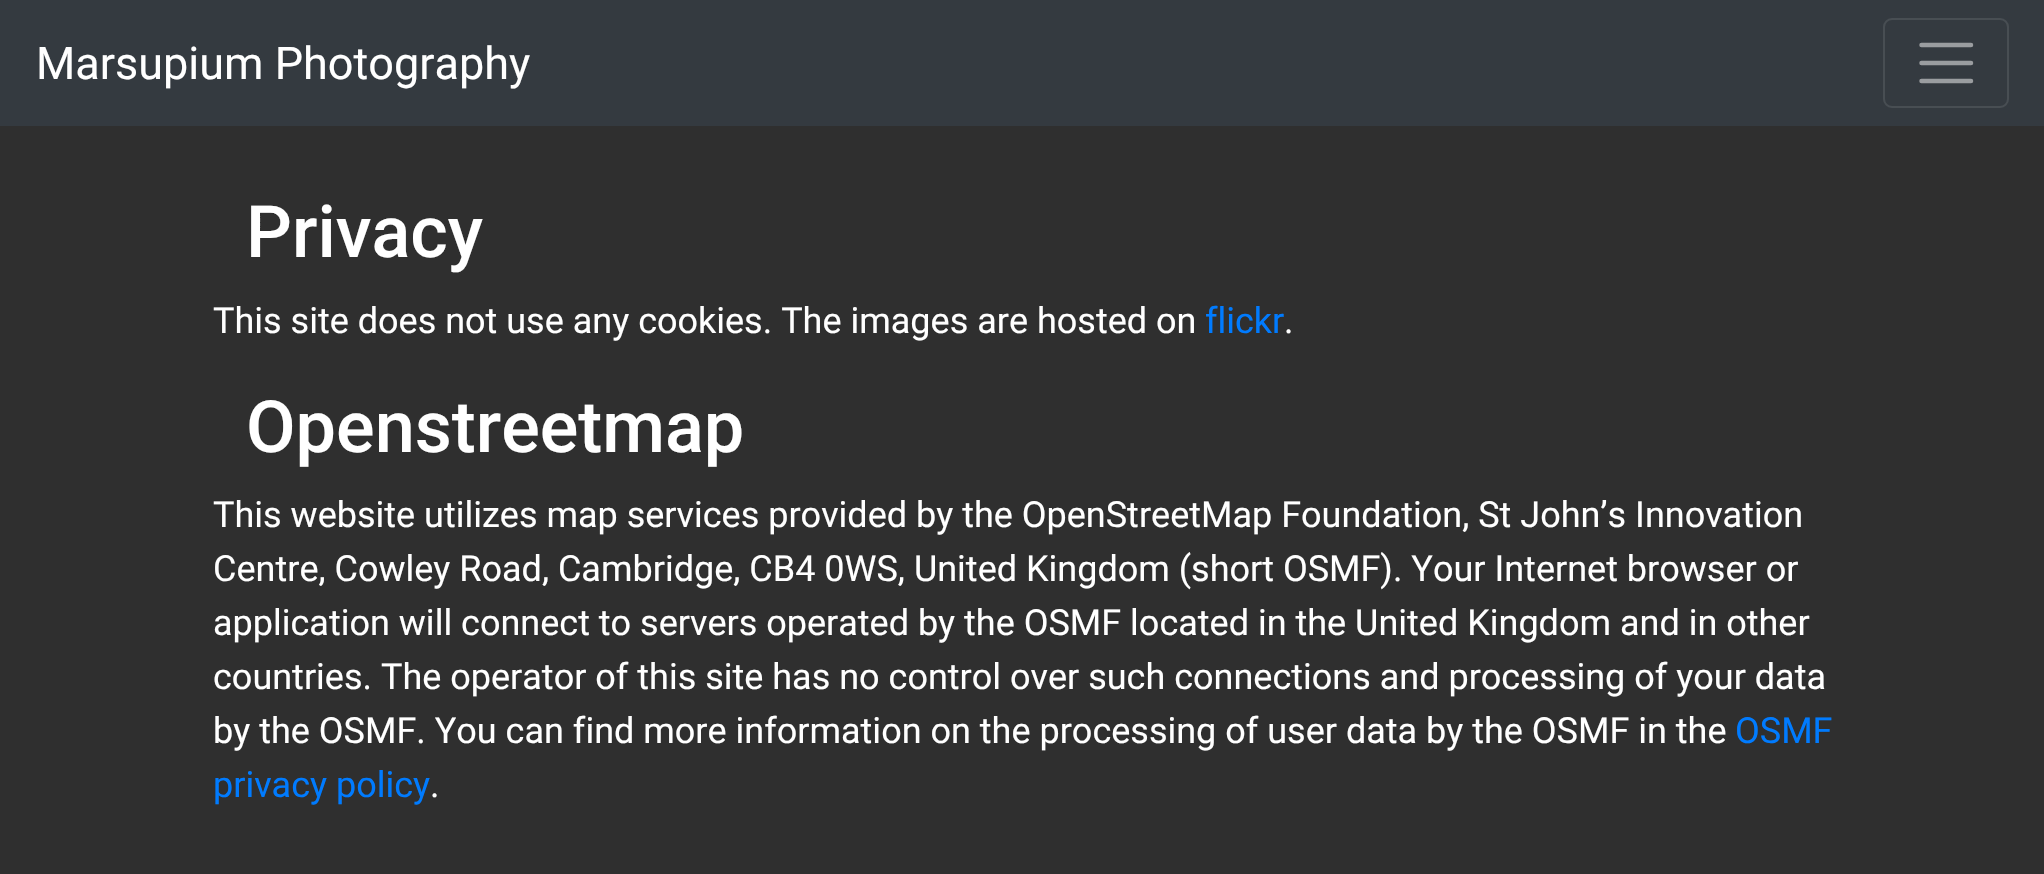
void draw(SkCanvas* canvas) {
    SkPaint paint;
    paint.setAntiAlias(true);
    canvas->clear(0xFF2F2F2F);
    paint.setColor(0xFF343A40);
    canvas->drawRect(SkRect::MakeXYWH(0, 0, 2044, 126), paint);
    SkFont font1(fontMgr->matchFamilyStyle("Roboto", SkFontStyle::Normal()), 45);
    font1.setSubpixel(true);
    paint.setColor(0xFFFFFFFF);
    canvas->drawString("Marsupium Photography", 36, 79, font1, paint);
    paint.setStyle(SkPaint::kStroke_Style);
    paint.setStrokeWidth(2);
    paint.setColor(0xFF484E53);
    canvas->drawRoundRect(SkRect::MakeXYWH(1884, 19, 124, 88), 8, 8, paint);
    paint.setStrokeWidth(4.5f);
    paint.setStrokeCap(SkPaint::kRound_Cap);
    paint.setColor(0xFF9A9DA0);
    canvas->drawPath(SkPathBuilder().moveTo(1921.5f, 45).lineTo(1971, 45).moveTo(1921.5f, 63).lineTo(1971, 63).moveTo(1921.5f, 81).lineTo(1971, 81).detach(), paint);
    SkFont font2(fontMgr->matchFamilyStyle("Roboto", SkFontStyle(500, SkFontStyle::kNormal_Width, SkFontStyle::kUpright_Slant)), 72);
    font2.setSubpixel(true);
    paint.setStyle(SkPaint::kFill_Style);
    paint.setColor(0xFFFFFFFF);
    canvas->drawString("Privacy", 246, 257, font2, paint);
    SkFont font3(fontMgr->matchFamilyStyle("Roboto", SkFontStyle::Normal()), 36);
    font3.setSubpixel(true);
    canvas->drawString("This site does not use any cookies. The images are hosted on", 213, 333, font3, paint);
    paint.setColor(0xFF007BFF);
    canvas->drawString("flickr", 1205, 333, font3, paint);
    paint.setColor(0xFFFFFFFF);
    canvas->drawString(".", 1284, 333, font3, paint);
    canvas->drawString("Openstreetmap", 246, 452, font2, paint);
    canvas->drawString("This website utilizes map services provided by the OpenStreetMap Foundation, St John’s Innovation", 213, 527, font3, paint);
    canvas->drawString("Centre, Cowley Road, Cambridge, CB4 0WS, United Kingdom (short OSMF). Your Internet browser or", 213, 581, font3, paint);
    canvas->drawString("application will connect to servers operated by the OSMF located in the United Kingdom and in other", 213, 635, font3, paint);
    canvas->drawString("countries. The operator of this site has no control over such connections and processing of your data", 213, 689, font3, paint);
    canvas->drawString("by the OSMF. You can find more information on the processing of user data by the OSMF in the", 213, 743, font3, paint);
    paint.setColor(0xFF007BFF);
    canvas->drawString("OSMF", 1735, 743, font3, paint);
    canvas->drawString("privacy policy", 213, 797, font3, paint);
    paint.setColor(0xFFFFFFFF);
    canvas->drawString(".", 430, 797, font3, paint);
}
